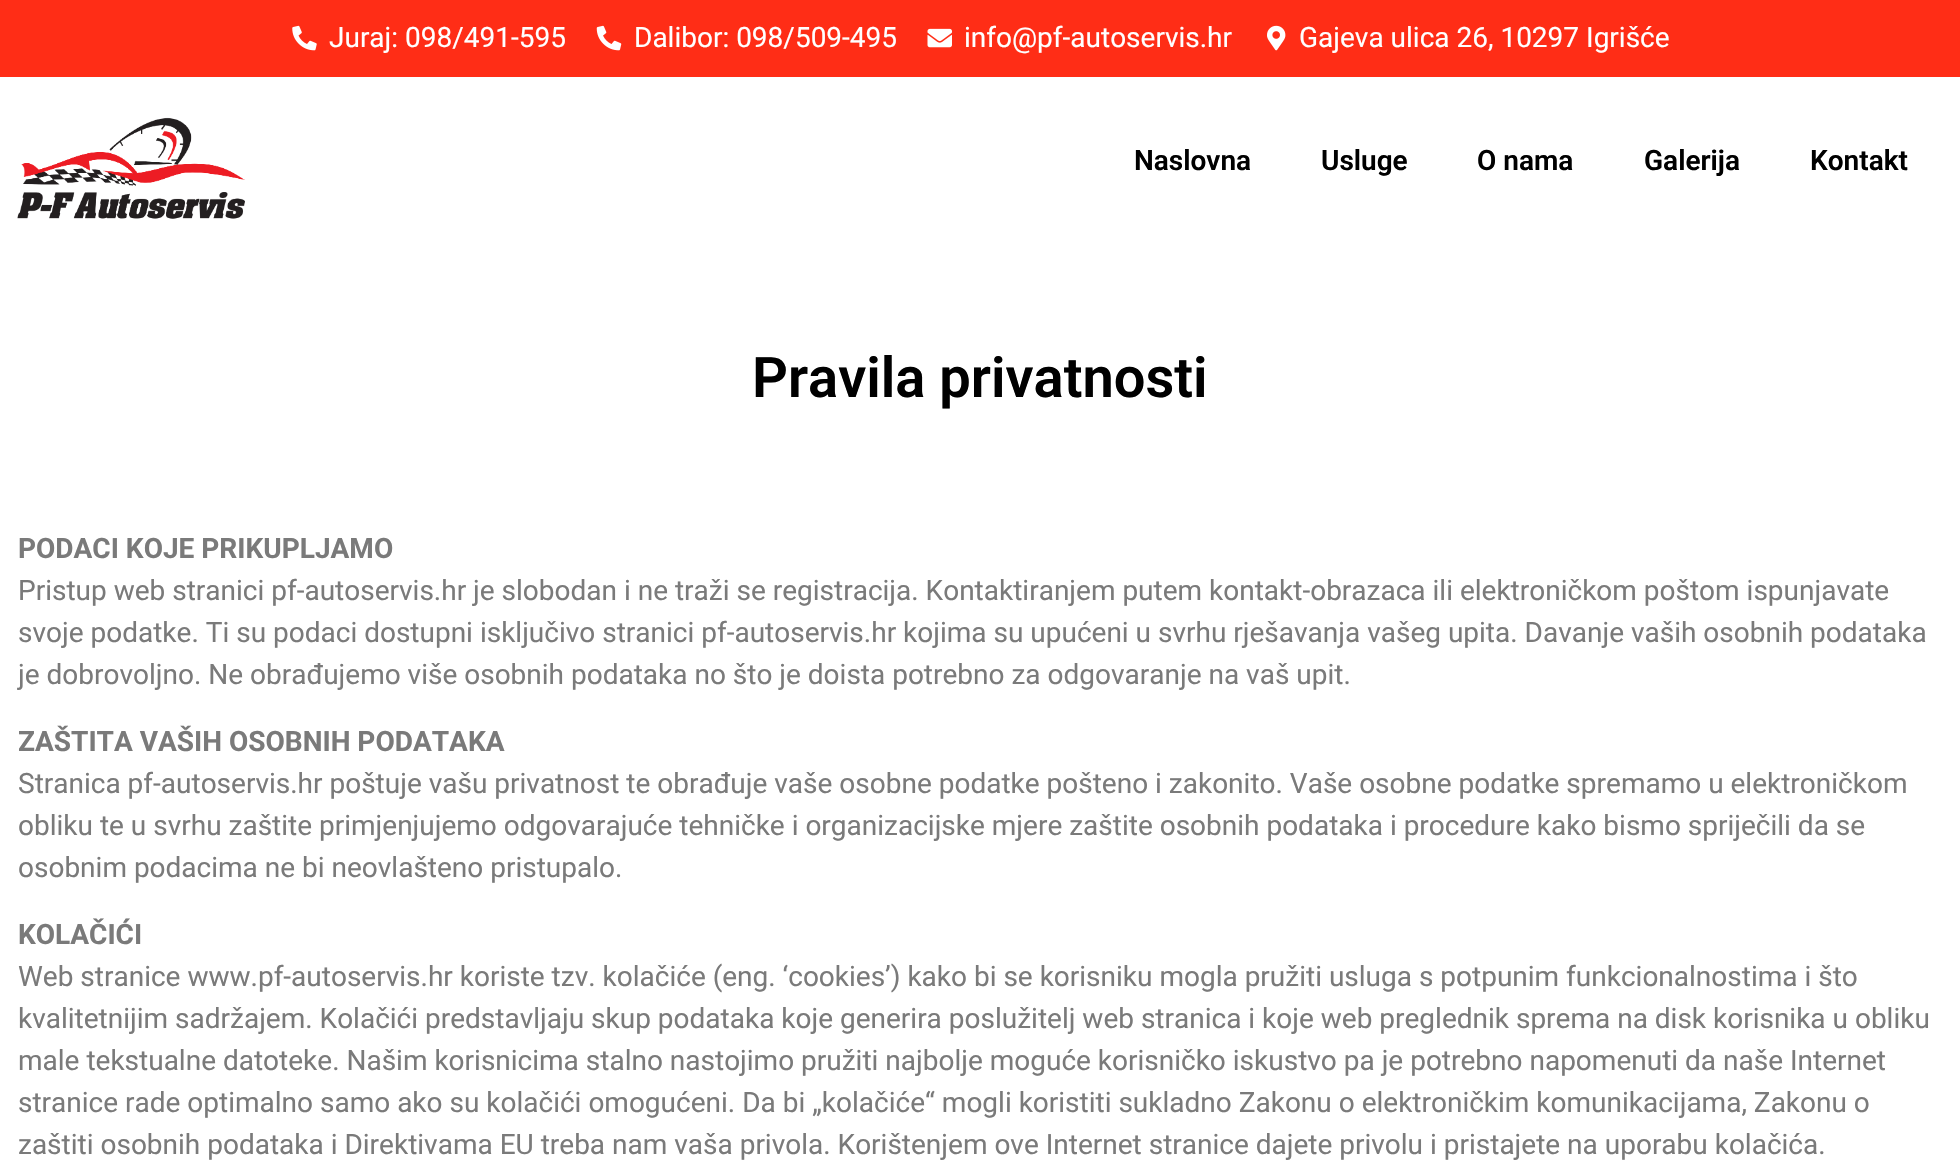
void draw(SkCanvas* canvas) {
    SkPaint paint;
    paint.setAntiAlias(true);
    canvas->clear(0xFFFFFFFF);
    paint.setColor(0xFFFF2D16);
    canvas->drawRect(SkRect::MakeXYWH(0, 0, 1960, 77), paint);
    canvas->drawImageRect(SkImages::DeferredFromEncodedData(SkData::MakeFromFileName("img1.png")), SkRect::MakeXYWH(292, 25, 25, 26), SkSamplingOptions());
    SkFont font1(fontMgr->matchFamilyStyle("Roboto", SkFontStyle::Normal()), 28);
    font1.setSubpixel(true);
    paint.setColor(0xFFFFFFFF);
    canvas->drawString("Juraj: 098/491-595", 329, 47, font1, paint);
    canvas->drawImageRect(SkImages::DeferredFromEncodedData(SkData::MakeFromFileName("img2.png")), SkRect::MakeXYWH(596, 25, 26, 26), SkSamplingOptions());
    canvas->drawString("Dalibor: 098/509-495", 634, 47, font1, paint);
    canvas->drawImageRect(SkImages::DeferredFromEncodedData(SkData::MakeFromFileName("img3.png")), SkRect::MakeXYWH(927, 28, 25, 20), SkSamplingOptions());
    canvas->drawString("info@pf-autoservis.hr", 964, 47, font1, paint);
    canvas->drawImageRect(SkImages::DeferredFromEncodedData(SkData::MakeFromFileName("img4.png")), SkRect::MakeXYWH(1267, 25, 19, 26), SkSamplingOptions());
    canvas->drawString("Gajeva ulica 26, 10297 Igrišće", 1299, 47, font1, paint);
    canvas->drawImageRect(SkImages::DeferredFromEncodedData(SkData::MakeFromFileName("img5.png")), SkRect::MakeXYWH(17, 117, 228, 102), SkSamplingOptions());
    SkFont font2(fontMgr->matchFamilyStyle("Roboto", SkFontStyle(600, SkFontStyle::kNormal_Width, SkFontStyle::kUpright_Slant)), 28);
    font2.setSubpixel(true);
    paint.setColor(0xFF000000);
    canvas->drawString("Naslovna", 1134, 170, font2, paint);
    canvas->drawString("Usluge", 1321, 170, font2, paint);
    canvas->drawString("O nama", 1477, 170, font2, paint);
    canvas->drawString("Galerija", 1644, 170, font2, paint);
    canvas->drawString("Kontakt", 1810, 170, font2, paint);
    SkFont font3(fontMgr->matchFamilyStyle("Roboto", SkFontStyle(600, SkFontStyle::kNormal_Width, SkFontStyle::kUpright_Slant)), 56);
    font3.setSubpixel(true);
    canvas->drawString("Pravila privatnosti", 752, 397, font3, paint);
    SkFont font4(fontMgr->matchFamilyStyle("Roboto", SkFontStyle::Bold()), 28);
    font4.setSubpixel(true);
    paint.setColor(0xFF7A7A7A);
    canvas->drawString("PODACI KOJE PRIKUPLJAMO", 18, 558, font4, paint);
    canvas->drawString("Pristup web stranici pf-autoservis.hr je slobodan i ne traži se registracija. Kontaktiranjem putem kontakt-obrazaca ili elektroničkom poštom ispunjavate", 18, 600, font1, paint);
    canvas->drawString("svoje podatke. Ti su podaci dostupni isključivo stranici pf-autoservis.hr kojima su upućeni u svrhu rješavanja vašeg upita. Davanje vaših osobnih podataka", 18, 642, font1, paint);
    canvas->drawString("je dobrovoljno. Ne obrađujemo više osobnih podataka no što je doista potrebno za odgovaranje na vaš upit.", 18, 684, font1, paint);
    canvas->drawString("ZAŠTITA VAŠIH OSOBNIH PODATAKA", 18, 751, font4, paint);
    canvas->drawString("Stranica pf-autoservis.hr poštuje vašu privatnost te obrađuje vaše osobne podatke pošteno i zakonito. Vaše osobne podatke spremamo u elektroničkom", 18, 793, font1, paint);
    canvas->drawString("obliku te u svrhu zaštite primjenjujemo odgovarajuće tehničke i organizacijske mjere zaštite osobnih podataka i procedure kako bismo spriječili da se", 18, 835, font1, paint);
    canvas->drawString("osobnim podacima ne bi neovlašteno pristupalo.", 18, 877, font1, paint);
    canvas->drawString("KOLAČIĆI", 18, 944, font4, paint);
    canvas->drawString("Web stranice www.pf-autoservis.hr koriste tzv. kolačiće (eng. ‘cookies’) kako bi se korisniku mogla pružiti usluga s potpunim funkcionalnostima i što", 18, 986, font1, paint);
    canvas->drawString("kvalitetnijim sadržajem. Kolačići predstavljaju skup podataka koje generira poslužitelj web stranica i koje web preglednik sprema na disk korisnika u obliku", 18, 1028, font1, paint);
    canvas->drawString("male tekstualne datoteke. Našim korisnicima stalno nastojimo pružiti najbolje moguće korisničko iskustvo pa je potrebno napomenuti da naše Internet", 18, 1070, font1, paint);
    canvas->drawString("stranice rade optimalno samo ako su kolačići omogućeni. Da bi „kolačiće“ mogli koristiti sukladno Zakonu o elektroničkim komunikacijama, Zakonu o", 18, 1112, font1, paint);
    canvas->drawString("zaštiti osobnih podataka i Direktivama EU treba nam vaša privola. Korištenjem ove Internet stranice dajete privolu i pristajete na uporabu kolačića.", 18, 1154, font1, paint);
}
